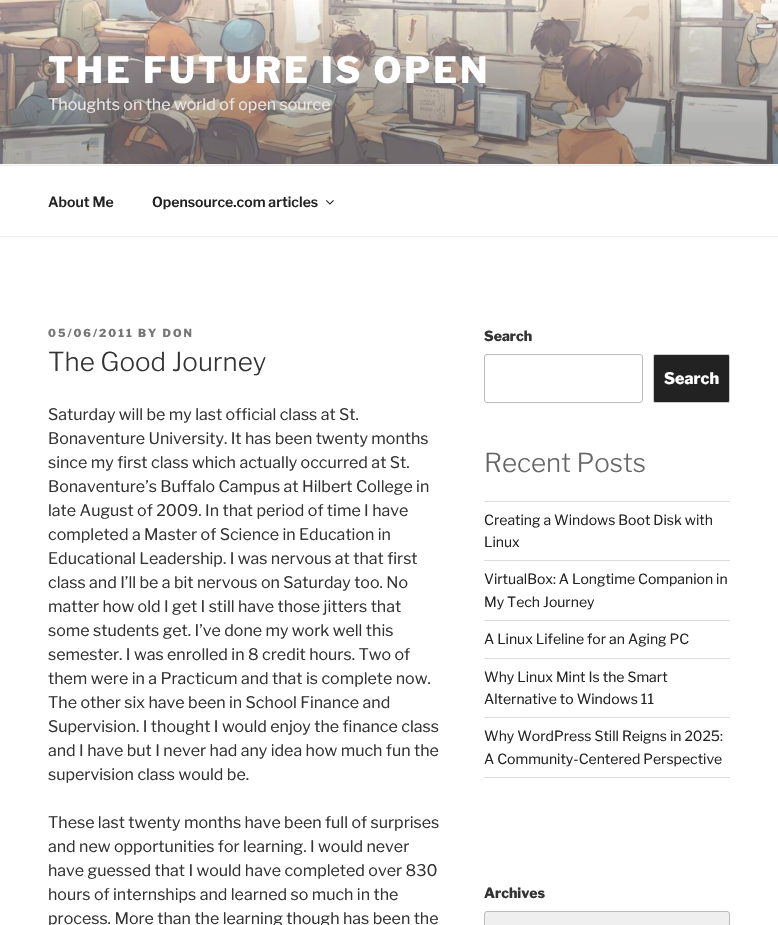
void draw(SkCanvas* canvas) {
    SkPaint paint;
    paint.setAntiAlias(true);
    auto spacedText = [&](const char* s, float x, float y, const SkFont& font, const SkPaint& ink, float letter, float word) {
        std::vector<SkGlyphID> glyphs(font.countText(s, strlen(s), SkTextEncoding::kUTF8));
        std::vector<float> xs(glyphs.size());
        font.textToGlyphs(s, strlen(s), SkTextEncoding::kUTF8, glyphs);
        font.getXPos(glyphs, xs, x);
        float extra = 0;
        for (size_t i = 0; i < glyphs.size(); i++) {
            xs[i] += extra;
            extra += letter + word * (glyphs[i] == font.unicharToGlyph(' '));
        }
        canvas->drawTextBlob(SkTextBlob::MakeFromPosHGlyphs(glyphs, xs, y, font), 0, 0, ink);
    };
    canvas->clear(0xFFFFFFFF);
    paint.setColor(0xFFFAFAFA);
    canvas->drawRect(SkRect::MakeXYWH(0, 164, 778, 1), paint);
    canvas->drawImageRect(SkImages::DeferredFromEncodedData(SkData::MakeFromFileName("img1.png")), SkRect::MakeXYWH(0, 0, 778, 164), SkSamplingOptions());
    SkFont font1(fontMgr->matchFamilyStyle("Libre Franklin", SkFontStyle(100, SkFontStyle::kNormal_Width, SkFontStyle::kUpright_Slant)), 36);
    font1.setSubpixel(true);
    paint.setColor(0xFFFFFFFF);
    spacedText("THE FUTURE IS OPEN", 48, 83, font1, paint, 2.9f, 0);
    SkFont font2(fontMgr->matchFamilyStyle("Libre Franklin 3", SkFontStyle(100, SkFontStyle::kNormal_Width, SkFontStyle::kUpright_Slant)), 16);
    font2.setSubpixel(true);
    paint.setColor(0xFFEAE7E6);
    canvas->drawString("Thoughts on the world of open source", 48, 110, font2, paint);
    paint.setColor(0xFFEEEEEE);
    canvas->drawRect(SkRect::MakeXYWH(0, 165, 778, 1), paint);
    canvas->drawRect(SkRect::MakeXYWH(0, 236, 778, 1), paint);
    SkFont font3(fontMgr->matchFamilyStyle("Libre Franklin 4", SkFontStyle(100, SkFontStyle::kNormal_Width, SkFontStyle::kUpright_Slant)), 14);
    font3.setSubpixel(true);
    paint.setColor(0xFF222222);
    canvas->drawString("About Me", 48, 207, font3, paint);
    canvas->drawString("Opensource.com articles", 152, 207, font3, paint);
    canvas->drawImageRect(SkImages::DeferredFromEncodedData(SkData::MakeFromFileName("img2.png")), SkRect::MakeXYWH(326, 200, 8, 5), SkSamplingOptions());
    SkFont font4(fontMgr->matchFamilyStyle("Libre Franklin", SkFontStyle(100, SkFontStyle::kNormal_Width, SkFontStyle::kUpright_Slant)), 11);
    font4.setSubpixel(true);
    paint.setColor(0xFF767676);
    spacedText("05/06/2011 BY DON", 48, 337, font4, paint, 2, 0);
    SkFont font5(fontMgr->matchFamilyStyle("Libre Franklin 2", SkFontStyle(100, SkFontStyle::kNormal_Width, SkFontStyle::kUpright_Slant)), 26);
    font5.setSubpixel(true);
    paint.setColor(0xFF333333);
    canvas->drawString("The Good Journey", 48, 371, font5, paint);
    canvas->drawString("Saturday will be my last official class at St.", 48, 420, font2, paint);
    canvas->drawString("Bonaventure University. It has been twenty months", 48, 444, font2, paint);
    canvas->drawString("since my first class which actually occurred at St.", 48, 468, font2, paint);
    canvas->drawString("Bonaventure’s Buffalo Campus at Hilbert College in", 48, 492, font2, paint);
    canvas->drawString("late August of 2009. In that period of time I have", 48, 516, font2, paint);
    canvas->drawString("completed a Master of Science in Education in", 48, 540, font2, paint);
    canvas->drawString("Educational Leadership. I was nervous at that first", 48, 564, font2, paint);
    canvas->drawString("class and I’ll be a bit nervous on Saturday too. No", 48, 588, font2, paint);
    canvas->drawString("matter how old I get I still have those jitters that", 48, 612, font2, paint);
    canvas->drawString("some students get. I’ve done my work well this", 48, 636, font2, paint);
    canvas->drawString("semester. I was enrolled in 8 credit hours. Two of", 48, 660, font2, paint);
    canvas->drawString("them were in a Practicum and that is complete now.", 48, 684, font2, paint);
    canvas->drawString("The other six have been in School Finance and", 48, 708, font2, paint);
    canvas->drawString("Supervision. I thought I would enjoy the finance class", 48, 732, font2, paint);
    canvas->drawString("and I have but I never had any idea how much fun the", 48, 756, font2, paint);
    canvas->drawString("supervision class would be.", 48, 780, font2, paint);
    canvas->drawString("These last twenty months have been full of surprises", 48, 828, font2, paint);
    canvas->drawString("and new opportunities for learning. I would never", 48, 852, font2, paint);
    canvas->drawString("have guessed that I would have completed over 830", 48, 876, font2, paint);
    canvas->drawString("hours of internships and learned so much in the", 48, 900, font2, paint);
    canvas->drawString("process. More than the learning though has been the", 48, 924, font2, paint);
    SkFont font6(fontMgr->matchFamilyStyle("Libre Franklin", SkFontStyle(100, SkFontStyle::kNormal_Width, SkFontStyle::kUpright_Slant)), 14);
    font6.setSubpixel(true);
    canvas->drawString("Search", 484, 341, font6, paint);
    paint.setStyle(SkPaint::kStroke_Style);
    paint.setStrokeWidth(1);
    paint.setColor(0xFFBBBBBB);
    canvas->drawRoundRect(SkRect::MakeXYWH(484.5f, 354.5f, 158, 48), 2.5f, 2.5f, paint);
    paint.setStyle(SkPaint::kFill_Style);
    paint.setColor(0xFF222222);
    canvas->drawRoundRect(SkRect::MakeXYWH(653.5f, 354.5f, 76, 48), 1.5f, 1.5f, paint);
    paint.setStyle(SkPaint::kStroke_Style);
    paint.setColor(0xFFCCCCCC);
    canvas->drawRoundRect(SkRect::MakeXYWH(653.5f, 354.5f, 76, 48), 1.5f, 1.5f, paint);
    SkFont font7(fontMgr->matchFamilyStyle("Libre Franklin", SkFontStyle(100, SkFontStyle::kNormal_Width, SkFontStyle::kUpright_Slant)), 16);
    font7.setSubpixel(true);
    paint.setStyle(SkPaint::kFill_Style);
    paint.setColor(0xFFFFFFFF);
    canvas->drawString("Search", 664, 384, font7, paint);
    paint.setColor(0xFF666666);
    canvas->drawString("Recent Posts", 484, 472, font5, paint);
    paint.setColor(0xFFDDDDDD);
    canvas->drawRect(SkRect::MakeXYWH(484, 501, 246, 1), paint);
    canvas->drawRect(SkRect::MakeXYWH(484, 560, 246, 1), paint);
    SkFont font8(fontMgr->matchFamilyStyle("Libre Franklin 3", SkFontStyle(100, SkFontStyle::kNormal_Width, SkFontStyle::kUpright_Slant)), 14);
    font8.setSubpixel(true);
    paint.setColor(0xFF222222);
    canvas->drawString("Creating a Windows Boot Disk with", 484, 525, font8, paint);
    canvas->drawString("Linux", 484, 547, font8, paint);
    paint.setColor(0xFFDDDDDD);
    canvas->drawRect(SkRect::MakeXYWH(484, 620, 246, 1), paint);
    paint.setColor(0xFF222222);
    canvas->drawString("VirtualBox: A Longtime Companion in", 484, 584, font8, paint);
    canvas->drawString("My Tech Journey", 484, 607, font8, paint);
    paint.setColor(0xFFDDDDDD);
    canvas->drawRect(SkRect::MakeXYWH(484, 658, 246, 1), paint);
    paint.setColor(0xFF222222);
    canvas->drawString("A Linux Lifeline for an Aging PC", 484, 644, font8, paint);
    paint.setColor(0xFFDDDDDD);
    canvas->drawRect(SkRect::MakeXYWH(484, 717, 246, 1), paint);
    paint.setColor(0xFF222222);
    canvas->drawString("Why Linux Mint Is the Smart", 484, 682, font8, paint);
    canvas->drawString("Alternative to Windows 11", 484, 704, font8, paint);
    paint.setColor(0xFFDDDDDD);
    canvas->drawRect(SkRect::MakeXYWH(484, 777, 246, 1), paint);
    paint.setColor(0xFF222222);
    canvas->drawString("Why WordPress Still Reigns in 2025:", 484, 741, font8, paint);
    canvas->drawString("A Community-Centered Perspective", 484, 764, font8, paint);
    paint.setColor(0xFF333333);
    canvas->drawString("Archives", 484, 898, font6, paint);
    paint.setColor(0xFFEFEFEF);
    canvas->drawRoundRect(SkRect::MakeXYWH(484.5f, 911.5f, 245, 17), 2.5f, 2.5f, paint);
    paint.setStyle(SkPaint::kStroke_Style);
    paint.setColor(0xFFBBBBBB);
    canvas->drawRoundRect(SkRect::MakeXYWH(484.5f, 911.5f, 245, 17), 2.5f, 2.5f, paint);
}
